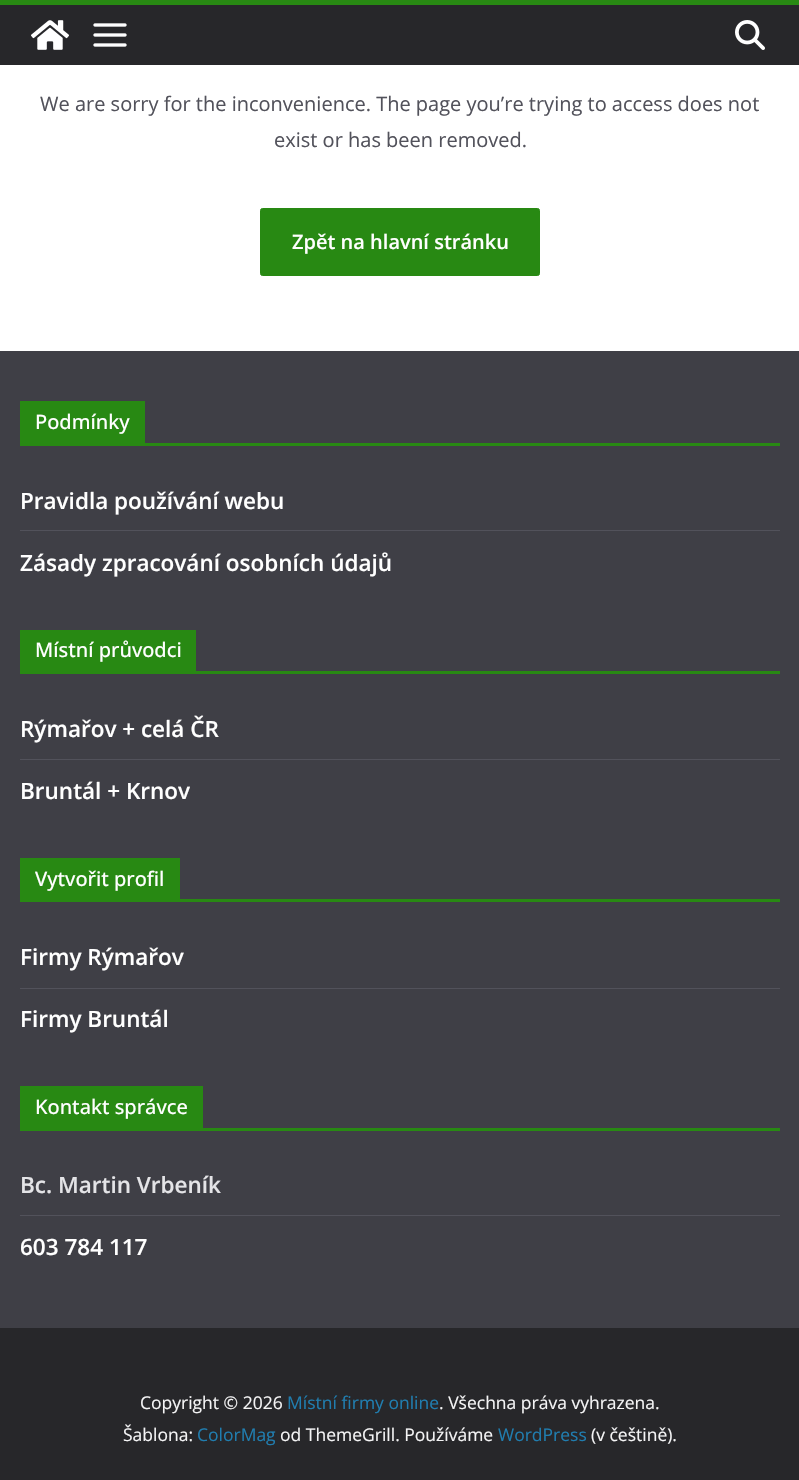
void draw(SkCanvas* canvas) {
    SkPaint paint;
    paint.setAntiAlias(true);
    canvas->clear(0xFFFFFFFF);
    paint.setColor(0xFF27272A);
    canvas->drawRect(SkRect::MakeXYWH(0, 5, 799, 60), paint);
    paint.setColor(0xFF288913);
    canvas->drawRect(SkRect::MakeXYWH(0, 0, 799, 5), paint);
    canvas->drawImageRect(SkImages::DeferredFromEncodedData(SkData::MakeFromFileName("img1.png")), SkRect::MakeXYWH(31, 20, 38, 30), SkSamplingOptions());
    canvas->drawImageRect(SkImages::DeferredFromEncodedData(SkData::MakeFromFileName("img2.png")), SkRect::MakeXYWH(93, 23, 34, 24), SkSamplingOptions());
    canvas->drawImageRect(SkImages::DeferredFromEncodedData(SkData::MakeFromFileName("img3.png")), SkRect::MakeXYWH(735, 20, 30, 30), SkSamplingOptions());
    SkFont font1(fontMgr->matchFamilyStyle("Open Sans", SkFontStyle::Normal()), 20);
    font1.setSubpixel(true);
    paint.setColor(0xFF52525B);
    canvas->drawString("We are sorry for the inconvenience. The page you’re trying to access does not", 40, 111, font1, paint);
    canvas->drawString("exist or has been removed.", 274, 147, font1, paint);
    paint.setColor(0xFF288913);
    canvas->drawRoundRect(SkRect::MakeXYWH(260.5f, 208.5f, 279, 67), 2, 2, paint);
    paint.setStyle(SkPaint::kStroke_Style);
    paint.setStrokeWidth(1);
    canvas->drawRoundRect(SkRect::MakeXYWH(260.5f, 208.5f, 279, 67), 2, 2, paint);
    SkFont font2(fontMgr->matchFamilyStyle("Open Sans", SkFontStyle(600, SkFontStyle::kNormal_Width, SkFontStyle::kUpright_Slant)), 20);
    font2.setSubpixel(true);
    paint.setStyle(SkPaint::kFill_Style);
    paint.setColor(0xFFFFFFFF);
    canvas->drawString("Zpět na hlavní stránku", 292, 249, font2, paint);
    paint.setColor(0xFF3F3F46);
    canvas->drawRect(SkRect::MakeXYWH(0, 351, 799, 977), paint);
    paint.setColor(0xFF288913);
    canvas->drawRect(SkRect::MakeXYWH(20, 443, 760, 3), paint);
    canvas->drawRect(SkRect::MakeXYWH(20, 401, 125, 42), paint);
    SkFont font3(fontMgr->matchFamilyStyle("Open Sans", SkFontStyle(500, SkFontStyle::kNormal_Width, SkFontStyle::kUpright_Slant)), 20);
    font3.setSubpixel(true);
    paint.setColor(0xFFFFFFFF);
    canvas->drawString("Podmínky", 35, 429, font3, paint);
    paint.setColor(0xFF52525B);
    canvas->drawRect(SkRect::MakeXYWH(20, 530, 760, 1), paint);
    SkFont font4(fontMgr->matchFamilyStyle("Open Sans", SkFontStyle(600, SkFontStyle::kNormal_Width, SkFontStyle::kUpright_Slant)), 22.5f);
    font4.setSubpixel(true);
    paint.setColor(0xFFFFFFFF);
    canvas->drawString("Pravidla používání webu", 20, 509, font4, paint);
    canvas->drawString("Zásady zpracování osobních údajů", 20, 571, font4, paint);
    paint.setColor(0xFF288913);
    canvas->drawRect(SkRect::MakeXYWH(20, 671, 760, 3), paint);
    canvas->drawRect(SkRect::MakeXYWH(20, 630, 176, 41), paint);
    paint.setColor(0xFFFFFFFF);
    canvas->drawString("Místní průvodci", 35, 657, font3, paint);
    paint.setColor(0xFF52525B);
    canvas->drawRect(SkRect::MakeXYWH(20, 759, 760, 1), paint);
    paint.setColor(0xFFFFFFFF);
    canvas->drawString("Rýmařov + celá ČR", 20, 737, font4, paint);
    canvas->drawString("Bruntál + Krnov", 20, 799, font4, paint);
    paint.setColor(0xFF288913);
    canvas->drawRect(SkRect::MakeXYWH(20, 899, 760, 3), paint);
    canvas->drawRect(SkRect::MakeXYWH(20, 858, 160, 41), paint);
    paint.setColor(0xFFFFFFFF);
    canvas->drawString("Vytvořit profil", 35, 886, font3, paint);
    paint.setColor(0xFF52525B);
    canvas->drawRect(SkRect::MakeXYWH(20, 988, 760, 1), paint);
    paint.setColor(0xFFFFFFFF);
    canvas->drawString("Firmy Rýmařov", 20, 965, font4, paint);
    canvas->drawString("Firmy Bruntál", 20, 1027, font4, paint);
    paint.setColor(0xFF288913);
    canvas->drawRect(SkRect::MakeXYWH(20, 1128, 760, 3), paint);
    canvas->drawRect(SkRect::MakeXYWH(20, 1086, 183, 42), paint);
    paint.setColor(0xFFFFFFFF);
    canvas->drawString("Kontakt správce", 35, 1114, font3, paint);
    paint.setColor(0xFF52525B);
    canvas->drawRect(SkRect::MakeXYWH(20, 1215, 760, 1), paint);
    paint.setColor(0xFFE4E4E7);
    canvas->drawString("Bc. Martin Vrbeník", 20, 1193, font4, paint);
    paint.setColor(0xFFFFFFFF);
    canvas->drawString("603 784 117", 20, 1255, font4, paint);
    paint.setColor(0xFF27272A);
    canvas->drawRect(SkRect::MakeXYWH(0, 1328, 799, 152), paint);
    SkFont font5(fontMgr->matchFamilyStyle("Open Sans", SkFontStyle::Normal()), 17.5f);
    font5.setSubpixel(true);
    paint.setColor(0xFFF4F4F5);
    canvas->drawString("Copyright © 2026", 140, 1409, font5, paint);
    paint.setColor(0xFF207DAF);
    canvas->drawString("Místní firmy online", 287, 1409, font5, paint);
    paint.setColor(0xFFF4F4F5);
    canvas->drawString(". Všechna práva vyhrazena.", 439, 1409, font5, paint);
    canvas->drawString("Šablona:", 123, 1441, font5, paint);
    paint.setColor(0xFF207DAF);
    canvas->drawString("ColorMag", 197, 1441, font5, paint);
    paint.setColor(0xFFF4F4F5);
    canvas->drawString("od ThemeGrill. Používáme", 280, 1441, font5, paint);
    paint.setColor(0xFF207DAF);
    canvas->drawString("WordPress", 498, 1441, font5, paint);
    paint.setColor(0xFFF4F4F5);
    canvas->drawString("(v češtině).", 591, 1441, font5, paint);
}
